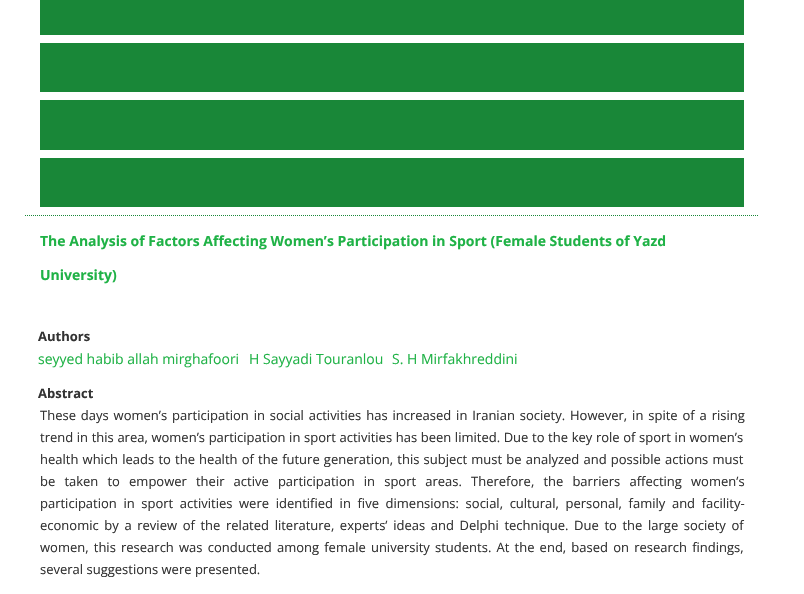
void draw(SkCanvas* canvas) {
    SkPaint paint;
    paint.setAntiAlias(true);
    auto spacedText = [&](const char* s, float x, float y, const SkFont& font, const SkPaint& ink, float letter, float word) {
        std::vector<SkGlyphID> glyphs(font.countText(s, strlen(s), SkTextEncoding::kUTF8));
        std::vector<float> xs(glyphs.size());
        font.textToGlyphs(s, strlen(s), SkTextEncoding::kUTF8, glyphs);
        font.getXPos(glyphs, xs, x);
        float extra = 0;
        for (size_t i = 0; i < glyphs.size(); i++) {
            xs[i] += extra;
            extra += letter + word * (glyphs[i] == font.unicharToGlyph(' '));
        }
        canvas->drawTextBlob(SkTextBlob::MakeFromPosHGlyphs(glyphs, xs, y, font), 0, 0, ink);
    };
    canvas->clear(0xFFFFFFFF);
    paint.setStyle(SkPaint::kStroke_Style);
    paint.setStrokeWidth(1);
    paint.setColor(0xFF198738);
    paint.setPathEffect(SkDashPathEffect::Make({{1, 1}}, 0));
    canvas->drawPath(SkPathBuilder().moveTo(25, 215.5f).lineTo(759, 215.5f).detach(), paint);
    paint.setPathEffect(nullptr);
    paint.setStyle(SkPaint::kFill_Style);
    canvas->drawRect(SkRect::MakeXYWH(40, 0, 704, 35), paint);
    canvas->drawRect(SkRect::MakeXYWH(40, 43, 704, 49), paint);
    canvas->drawRect(SkRect::MakeXYWH(40, 100, 704, 50), paint);
    canvas->drawRect(SkRect::MakeXYWH(40, 158, 704, 49), paint);
    SkFont font1(fontMgr->matchFamilyStyle("Open Sans", SkFontStyle::Bold()), 14);
    font1.setSubpixel(true);
    paint.setColor(0xFF1FB246);
    canvas->drawString("The Analysis of Factors Affecting Women’s Participation in Sport (Female Students of Yazd", 40, 246, font1, paint);
    canvas->drawString("University)", 40, 280, font1, paint);
    SkFont font2(fontMgr->matchFamilyStyle("Open Sans", SkFontStyle::Bold()), 13);
    font2.setSubpixel(true);
    paint.setColor(0xFF333333);
    canvas->drawString("Authors", 38, 341, font2, paint);
    SkFont font3(fontMgr->matchFamilyStyle("Open Sans", SkFontStyle::Normal()), 14);
    font3.setSubpixel(true);
    paint.setColor(0xFF1FB246);
    canvas->drawString("seyyed habib allah mirghafoori", 38, 364, font3, paint);
    canvas->drawString("H Sayyadi Touranlou", 249, 364, font3, paint);
    canvas->drawString("S. H Mirfakhreddini", 392, 364, font3, paint);
    paint.setColor(0xFF333333);
    canvas->drawString("Abstract", 38, 398, font2, paint);
    SkFont font4(fontMgr->matchFamilyStyle("Open Sans", SkFontStyle::Normal()), 13);
    font4.setSubpixel(true);
    spacedText("These days women’s participation in social activities has increased in Iranian society. However, in spite of a rising", 40, 420, font4, paint, 0, 1.5f);
    spacedText("trend in this area, women’s participation in sport activities has been limited. Due to the key role of sport in women’s", 40, 442, font4, paint, 0, 0.25f);
    spacedText("health which leads to the health of the future generation, this subject must be analyzed and possible actions must", 40, 464, font4, paint, 0, 0.8f);
    spacedText("be taken to empower their active participation in sport areas. Therefore, the barriers affecting women’s", 40, 486, font4, paint, 0, 5.75f);
    spacedText("participation in sport activities were identified in five dimensions: social, cultural, personal, family and facility-", 40, 508, font4, paint, 0, 3.25f);
    spacedText("economic by a review of the related literature, experts’ ideas and Delphi technique. Due to the large society of", 40, 530, font4, paint, 0, 2.25f);
    spacedText("women, this research was conducted among female university students. At the end, based on research findings,", 40, 552, font4, paint, 0, 1.8f);
    canvas->drawString("several suggestions were presented.", 40, 574, font4, paint);
}
